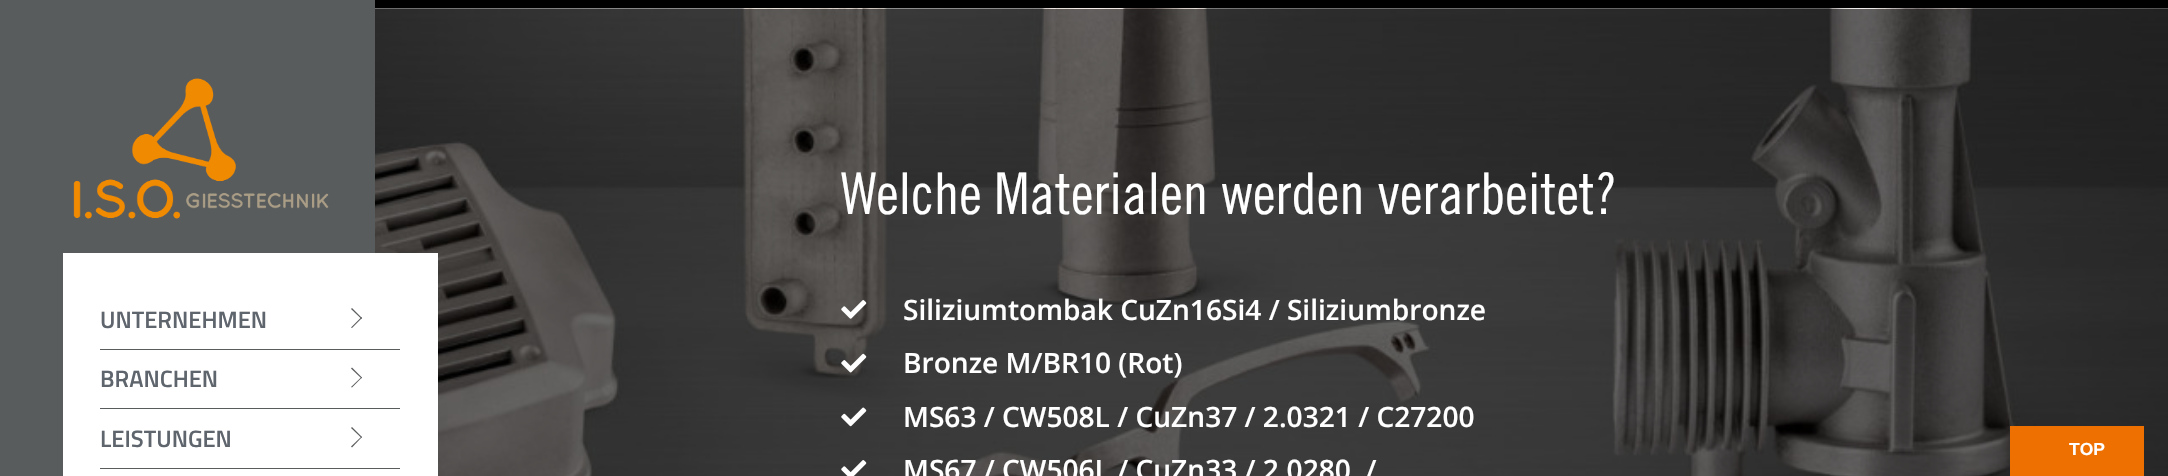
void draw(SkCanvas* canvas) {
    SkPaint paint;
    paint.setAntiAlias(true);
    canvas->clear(0xFF000000);
    paint.setColor(0xFF595C5D);
    canvas->drawRect(SkRect::MakeXYWH(0, 0, 375, 476), paint);
    canvas->drawImageRect(SkImages::DeferredFromEncodedData(SkData::MakeFromFileName("img1.png")), SkRect::MakeXYWH(73, 78, 256, 141), SkSamplingOptions());
    canvas->drawImageRect(SkImages::DeferredFromEncodedData(SkData::MakeFromFileName("img2.png")), SkRect::MakeXYWH(375, 8, 1793, 468), SkSamplingOptions());
    paint.setColor(0xFFFFFFFF);
    canvas->drawRect(SkRect::MakeXYWH(63, 253, 375, 223), paint);
    paint.setColor(0xFF595C5D);
    canvas->drawRect(SkRect::MakeXYWH(100, 349, 300, 1), paint);
    SkFont font1(fontMgr->matchFamilyStyle("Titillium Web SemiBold", SkFontStyle(600, SkFontStyle::kNormal_Width, SkFontStyle::kUpright_Slant)), 23.75f);
    font1.setSubpixel(true);
    paint.setColor(0xFF5F656D);
    canvas->drawString("UNTERNEHMEN", 100, 328, font1, paint);
    paint.setColor(0xFF5A5C5D);
    canvas->drawPath(SkPathBuilder().moveTo(351, 309).lineTo(352, 308).lineTo(362, 318).lineTo(361.5f, 319).close().detach(), paint);
    canvas->drawPath(SkPathBuilder().moveTo(351, 327.5f).lineTo(361.5f, 317).lineTo(362, 318).lineTo(352, 328).close().detach(), paint);
    paint.setColor(0xFF595C5D);
    canvas->drawRect(SkRect::MakeXYWH(100, 408, 300, 1), paint);
    paint.setColor(0xFF5F656D);
    canvas->drawString("BRANCHEN", 100, 387, font1, paint);
    paint.setColor(0xFF5A5C5D);
    canvas->drawPath(SkPathBuilder().moveTo(351, 368.5f).lineTo(352, 367.5f).lineTo(362, 377.5f).lineTo(361.5f, 378.5f).close().detach(), paint);
    canvas->drawPath(SkPathBuilder().moveTo(351, 387).lineTo(361.5f, 377).lineTo(362, 377.5f).lineTo(352, 387.5f).close().detach(), paint);
    paint.setColor(0xFF595C5D);
    canvas->drawRect(SkRect::MakeXYWH(100, 468, 300, 1), paint);
    paint.setColor(0xFF5F656D);
    canvas->drawString("LEISTUNGEN", 100, 447, font1, paint);
    paint.setColor(0xFF5A5C5D);
    canvas->drawPath(SkPathBuilder().moveTo(351, 428).lineTo(352, 427).lineTo(362, 437).lineTo(361.5f, 438).close().detach(), paint);
    canvas->drawPath(SkPathBuilder().moveTo(351, 446.5f).lineTo(361.5f, 436.5f).lineTo(362, 437).lineTo(352, 447.5f).close().detach(), paint);
    SkFont font2(fontMgr->matchFamilyStyle("Trade Gothic", SkFontStyle::Normal()), 57.5f);
    font2.setSubpixel(true);
    paint.setColor(0xFFFFFFFF);
    canvas->drawString("Welche Materialen werden verarbeitet?", 841, 214, font2, paint);
    canvas->drawImageRect(SkImages::DeferredFromEncodedData(SkData::MakeFromFileName("img3.png")), SkRect::MakeXYWH(841, 300, 26, 19), SkSamplingOptions());
    SkFont font3(fontMgr->matchFamilyStyle("Open Sans", SkFontStyle(600, SkFontStyle::kNormal_Width, SkFontStyle::kUpright_Slant)), 28.1f);
    font3.setSubpixel(true);
    canvas->drawString("Siliziumtombak CuZn16Si4 / Siliziumbronze", 903, 320, font3, paint);
    canvas->drawImageRect(SkImages::DeferredFromEncodedData(SkData::MakeFromFileName("img4.png")), SkRect::MakeXYWH(841, 353, 26, 20), SkSamplingOptions());
    canvas->drawString("Bronze M/BR10 (Rot)", 903, 373, font3, paint);
    canvas->drawImageRect(SkImages::DeferredFromEncodedData(SkData::MakeFromFileName("img5.png")), SkRect::MakeXYWH(841, 407, 26, 20), SkSamplingOptions());
    canvas->drawString("MS63 / CW508L / CuZn37 / 2.0321 / C27200", 903, 427, font3, paint);
    canvas->drawImageRect(SkImages::DeferredFromEncodedData(SkData::MakeFromFileName("img6.png")), SkRect::MakeXYWH(841, 460, 26, 16), SkSamplingOptions());
    canvas->drawString("MS67 / CW506L / CuZn33 / 2.0280   /", 903, 480, font3, paint);
    paint.setColor(0xFFEE7000);
    canvas->drawRect(SkRect::MakeXYWH(2010, 426, 134, 50), paint);
    SkFont font4(fontMgr->matchFamilyStyle("Liberation Sans", SkFontStyle::Bold()), 17.5f);
    font4.setSubpixel(true);
    paint.setColor(0xFFFFFFFF);
    canvas->drawString("TOP", 2069, 455, font4, paint);
}
